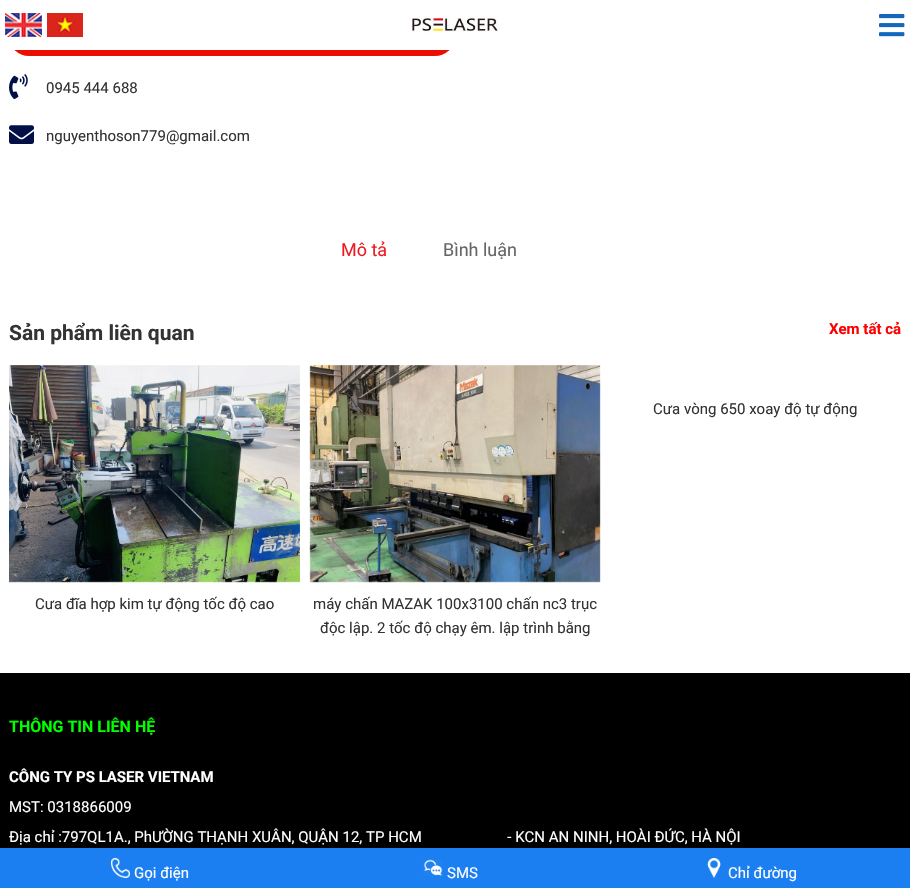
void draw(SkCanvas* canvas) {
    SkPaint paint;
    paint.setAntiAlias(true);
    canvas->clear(0xFFFFFFFF);
    paint.setColor(0xFFED0E03);
    canvas->drawRoundRect(SkRect::MakeXYWH(9, 16, 446, 40), 20, 20, paint);
    paint.setColor(0xFFFFFFFF);
    canvas->drawRect(SkRect::MakeXYWH(9, 16, 446, 34), paint);
    canvas->drawImageRect(SkImages::DeferredFromEncodedData(SkData::MakeFromFileName("img1.png")), SkRect::MakeXYWH(5, 13, 37, 24), SkSamplingOptions());
    canvas->drawImageRect(SkImages::DeferredFromEncodedData(SkData::MakeFromFileName("img2.png")), SkRect::MakeXYWH(47, 13, 36, 24), SkSamplingOptions());
    canvas->drawImageRect(SkImages::DeferredFromEncodedData(SkData::MakeFromFileName("img3.png")), SkRect::MakeXYWH(879, 14, 26, 23), SkSamplingOptions());
    canvas->drawImageRect(SkImages::DeferredFromEncodedData(SkData::MakeFromFileName("img4.png")), SkRect::MakeXYWH(412, 17, 86, 16), SkSamplingOptions());
    canvas->drawImageRect(SkImages::DeferredFromEncodedData(SkData::MakeFromFileName("img5.png")), SkRect::MakeXYWH(9, 74, 19, 26), SkSamplingOptions());
    SkFont font1(fontMgr->matchFamilyStyle("Roboto", SkFontStyle::Normal()), 15);
    font1.setSubpixel(true);
    paint.setColor(0xFF333333);
    canvas->drawString("0945 444 688", 46, 93, font1, paint);
    canvas->drawImageRect(SkImages::DeferredFromEncodedData(SkData::MakeFromFileName("img6.png")), SkRect::MakeXYWH(9, 125, 25, 19), SkSamplingOptions());
    canvas->drawString("nguyenthoson779@gmail.com", 46, 141, font1, paint);
    SkFont font2(fontMgr->matchFamilyStyle("Roboto", SkFontStyle::Normal()), 18);
    font2.setSubpixel(true);
    paint.setColor(0xFFED1C24);
    canvas->drawString("Mô tả", 341, 256, font2, paint);
    paint.setColor(0xFF666666);
    canvas->drawString("Bình luận", 443, 256, font2, paint);
    SkFont font3(fontMgr->matchFamilyStyle("Roboto", SkFontStyle::Bold()), 21);
    font3.setSubpixel(true);
    paint.setColor(0xFF333333);
    canvas->drawString("Sản phẩm liên quan", 9, 340, font3, paint);
    SkFont font4(fontMgr->matchFamilyStyle("Roboto", SkFontStyle::Bold()), 15);
    font4.setSubpixel(true);
    paint.setColor(0xFFFF0000);
    canvas->drawString("Xem tất cả", 829, 334, font4, paint);
    paint.setColor(0xFF333333);
    canvas->drawString("Cưa vòng 650 xoay độ tự động", 653, 414, font1, paint);
    canvas->drawImageRect(SkImages::DeferredFromEncodedData(SkData::MakeFromFileName("img7.png")), SkRect::MakeXYWH(9, 365, 291, 218), SkSamplingOptions());
    canvas->drawString("Cưa đĩa hợp kim tự động tốc độ cao", 35, 609, font1, paint);
    canvas->drawImageRect(SkImages::DeferredFromEncodedData(SkData::MakeFromFileName("img8.png")), SkRect::MakeXYWH(309, 365, 292, 218), SkSamplingOptions());
    canvas->drawString("máy chấn MAZAK 100x3100 chấn nc3 trục", 313, 609, font1, paint);
    canvas->drawString("độc lập. 2 tốc độ chạy êm. lập trình bằng", 320, 633, font1, paint);
    paint.setColor(0xFF000000);
    canvas->drawRect(SkRect::MakeXYWH(0, 673, 910, 175), paint);
    SkFont font5(fontMgr->matchFamilyStyle("Roboto", SkFontStyle::Bold()), 16);
    font5.setSubpixel(true);
    paint.setColor(0xFF00FF00);
    canvas->drawString("THÔNG TIN LIÊN HỆ", 9, 732, font5, paint);
    paint.setColor(0xFFFFFFFF);
    canvas->drawString("CÔNG TY PS LASER VIETNAM", 9, 782, font4, paint);
    canvas->drawString("MST: 0318866009", 9, 812, font1, paint);
    canvas->drawString("Địa chỉ :797QL1A., PhƯỜNG THẠNH XUÂN, QUẬN 12, TP HCM                       - KCN AN NINH, HOÀI ĐỨC, HÀ NỘI", 9, 842, font1, paint);
    paint.setColor(0xFF1B7FF1);
    canvas->drawRect(SkRect::MakeXYWH(0, 848, 910, 40), paint);
    canvas->drawImageRect(SkImages::DeferredFromEncodedData(SkData::MakeFromFileName("img9.png")), SkRect::MakeXYWH(111, 858, 19, 20), SkSamplingOptions());
    paint.setColor(0xFFFFFFFF);
    canvas->drawString("Gọi điện", 134, 878, font1, paint);
    canvas->drawImageRect(SkImages::DeferredFromEncodedData(SkData::MakeFromFileName("img10.png")), SkRect::MakeXYWH(423, 859, 20, 17), SkSamplingOptions());
    canvas->drawString("SMS", 447, 878, font1, paint);
    canvas->drawImageRect(SkImages::DeferredFromEncodedData(SkData::MakeFromFileName("img11.png")), SkRect::MakeXYWH(707, 858, 14, 20), SkSamplingOptions());
    canvas->drawString("Chỉ đường", 728, 878, font1, paint);
}
